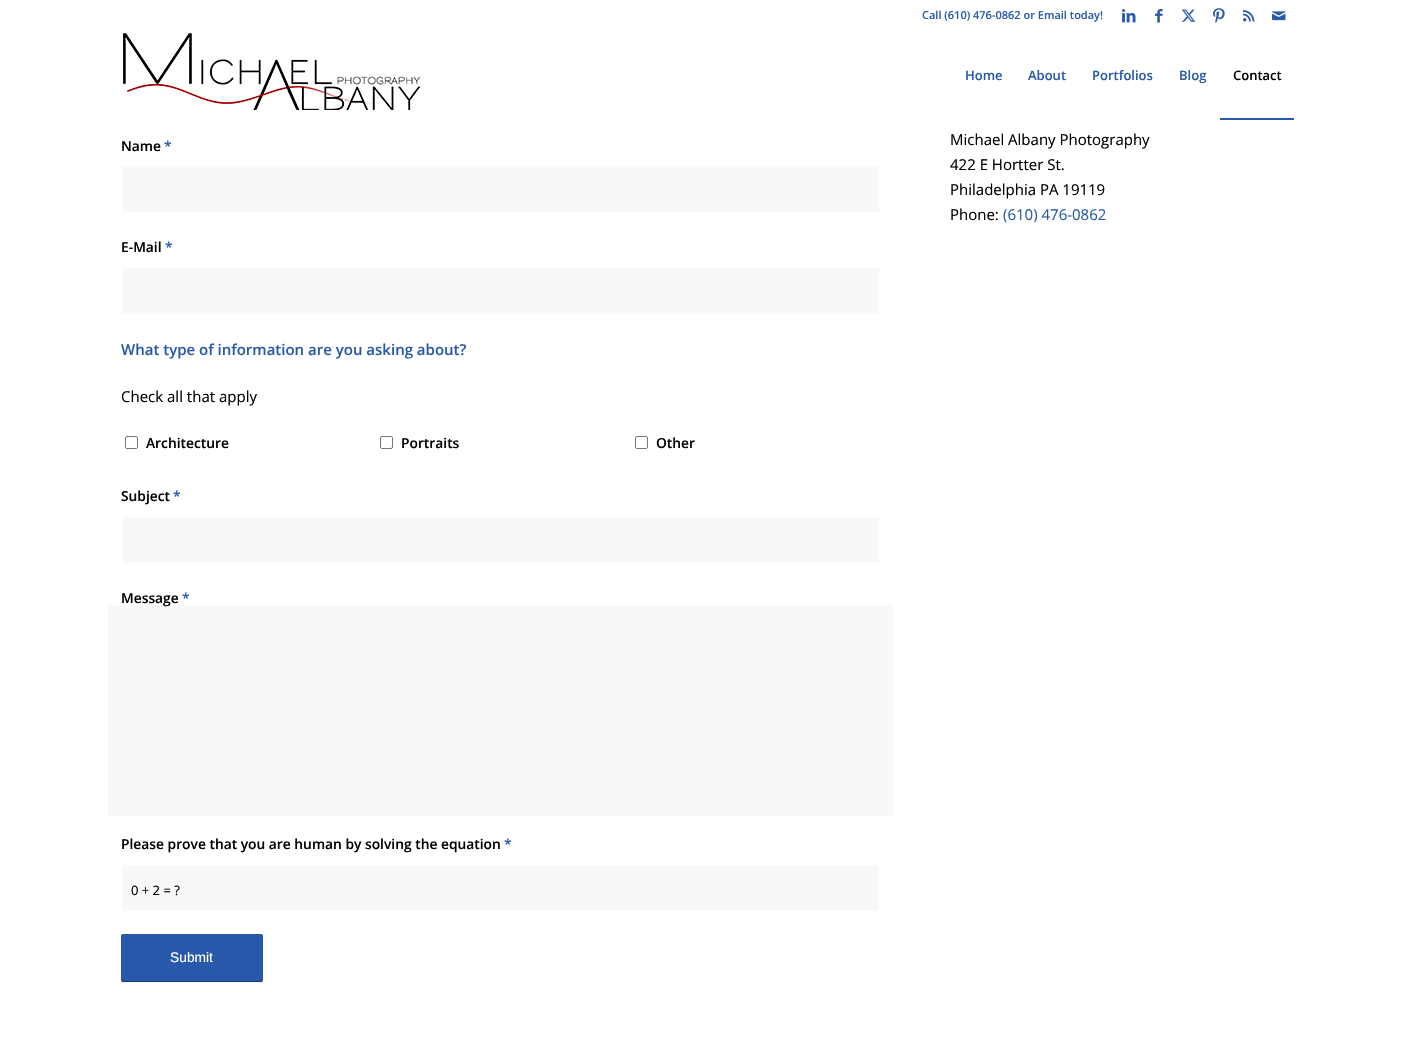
void draw(SkCanvas* canvas) {
    SkPaint paint;
    paint.setAntiAlias(true);
    canvas->clear(0xFFFFFFFF);
    SkFont font1(fontMgr->matchFamilyStyle("Open Sans", SkFontStyle(600, SkFontStyle::kNormal_Width, SkFontStyle::kUpright_Slant)), 11);
    font1.setSubpixel(true);
    paint.setColor(0xFF2959AB);
    canvas->drawString("Call (610) 476-0862 or Email today!", 922, 19, font1, paint);
    canvas->drawImageRect(SkImages::DeferredFromEncodedData(SkData::MakeFromFileName("img1.png")), SkRect::MakeXYWH(1122, 9, 14, 14), SkSamplingOptions());
    canvas->drawImageRect(SkImages::DeferredFromEncodedData(SkData::MakeFromFileName("img2.png")), SkRect::MakeXYWH(1155, 9, 8, 14), SkSamplingOptions());
    canvas->drawImageRect(SkImages::DeferredFromEncodedData(SkData::MakeFromFileName("img3.png")), SkRect::MakeXYWH(1181, 9, 15, 13), SkSamplingOptions());
    canvas->drawImageRect(SkImages::DeferredFromEncodedData(SkData::MakeFromFileName("img4.png")), SkRect::MakeXYWH(1213, 8, 12, 16), SkSamplingOptions());
    canvas->drawImageRect(SkImages::DeferredFromEncodedData(SkData::MakeFromFileName("img5.png")), SkRect::MakeXYWH(1243, 10, 12, 12), SkSamplingOptions());
    canvas->drawImageRect(SkImages::DeferredFromEncodedData(SkData::MakeFromFileName("img6.png")), SkRect::MakeXYWH(1272, 11, 14, 10), SkSamplingOptions());
    canvas->drawImageRect(SkImages::DeferredFromEncodedData(SkData::MakeFromFileName("img7.png")), SkRect::MakeXYWH(123, 33, 297, 77), SkSamplingOptions());
    SkFont font2(fontMgr->matchFamilyStyle("Open Sans", SkFontStyle(600, SkFontStyle::kNormal_Width, SkFontStyle::kUpright_Slant)), 13);
    font2.setSubpixel(true);
    canvas->drawString("Home", 965, 80, font2, paint);
    canvas->drawString("About", 1028, 80, font2, paint);
    canvas->drawString("Portfolios", 1092, 80, font2, paint);
    canvas->drawString("Blog", 1179, 80, font2, paint);
    paint.setColor(0xFF000000);
    canvas->drawString("Contact", 1233, 80, font2, paint);
    paint.setColor(0xFF2959AB);
    canvas->drawRect(SkRect::MakeXYWH(1220, 118, 74, 2), paint);
    SkFont font3(fontMgr->matchFamilyStyle("Open Sans", SkFontStyle(600, SkFontStyle::kNormal_Width, SkFontStyle::kUpright_Slant)), 13.8f);
    font3.setSubpixel(true);
    paint.setColor(0xFF000000);
    canvas->drawString("Name", 121, 151, font3, paint);
    paint.setColor(0xFF2959AB);
    canvas->drawString("*", 164, 151, font3, paint);
    paint.setColor(0xFFF8F8F8);
    canvas->drawRoundRect(SkRect::MakeXYWH(121.5f, 165.5f, 758, 47), 1.5f, 1.5f, paint);
    paint.setStyle(SkPaint::kStroke_Style);
    paint.setStrokeWidth(1);
    paint.setColor(0xFFFFFFFF);
    canvas->drawRoundRect(SkRect::MakeXYWH(121.5f, 165.5f, 758, 47), 1.5f, 1.5f, paint);
    paint.setStyle(SkPaint::kFill_Style);
    paint.setColor(0xFF000000);
    canvas->drawString("E-Mail", 121, 252, font3, paint);
    paint.setColor(0xFF2959AB);
    canvas->drawString("*", 165, 252, font3, paint);
    paint.setColor(0xFFF8F8F8);
    canvas->drawRoundRect(SkRect::MakeXYWH(121.5f, 267.5f, 758, 47), 1.5f, 1.5f, paint);
    paint.setStyle(SkPaint::kStroke_Style);
    paint.setColor(0xFFFFFFFF);
    canvas->drawRoundRect(SkRect::MakeXYWH(121.5f, 267.5f, 758, 47), 1.5f, 1.5f, paint);
    SkFont font4(fontMgr->matchFamilyStyle("Open Sans", SkFontStyle(600, SkFontStyle::kNormal_Width, SkFontStyle::kUpright_Slant)), 15);
    font4.setSubpixel(true);
    paint.setStyle(SkPaint::kFill_Style);
    paint.setColor(0xFF2959AB);
    canvas->drawString("What type of information are you asking about?", 121, 355, font4, paint);
    SkFont font5(fontMgr->matchFamilyStyle("Open Sans", SkFontStyle::Normal()), 15);
    font5.setSubpixel(true);
    paint.setColor(0xFF000000);
    canvas->drawString("Check all that apply", 121, 402, font5, paint);
    paint.setStyle(SkPaint::kStroke_Style);
    paint.setColor(0xFF767676);
    canvas->drawRoundRect(SkRect::MakeXYWH(125.5f, 436.5f, 12, 12), 1.5f, 1.5f, paint);
    paint.setStyle(SkPaint::kFill_Style);
    paint.setColor(0xFF000000);
    canvas->drawString("Architecture", 146, 448, font3, paint);
    paint.setStyle(SkPaint::kStroke_Style);
    paint.setColor(0xFF767676);
    canvas->drawRoundRect(SkRect::MakeXYWH(380.5f, 436.5f, 12, 12), 1.5f, 1.5f, paint);
    paint.setStyle(SkPaint::kFill_Style);
    paint.setColor(0xFF000000);
    canvas->drawString("Portraits", 401, 448, font3, paint);
    paint.setStyle(SkPaint::kStroke_Style);
    paint.setColor(0xFF767676);
    canvas->drawRoundRect(SkRect::MakeXYWH(635.5f, 436.5f, 12, 12), 1.5f, 1.5f, paint);
    paint.setStyle(SkPaint::kFill_Style);
    paint.setColor(0xFF000000);
    canvas->drawString("Other", 656, 448, font3, paint);
    canvas->drawString("Subject", 121, 501, font3, paint);
    paint.setColor(0xFF2959AB);
    canvas->drawString("*", 173, 501, font3, paint);
    paint.setColor(0xFFF8F8F8);
    canvas->drawRoundRect(SkRect::MakeXYWH(121.5f, 516.5f, 758, 47), 1.5f, 1.5f, paint);
    paint.setStyle(SkPaint::kStroke_Style);
    paint.setColor(0xFFFFFFFF);
    canvas->drawRoundRect(SkRect::MakeXYWH(121.5f, 516.5f, 758, 47), 1.5f, 1.5f, paint);
    paint.setStyle(SkPaint::kFill_Style);
    paint.setColor(0xFFF8F8F8);
    canvas->drawRoundRect(SkRect::MakeXYWH(107.5f, 604.5f, 786, 212), 1.5f, 1.5f, paint);
    paint.setStyle(SkPaint::kStroke_Style);
    paint.setColor(0xFFFFFFFF);
    canvas->drawRoundRect(SkRect::MakeXYWH(107.5f, 604.5f, 786, 212), 1.5f, 1.5f, paint);
    paint.setStyle(SkPaint::kFill_Style);
    paint.setColor(0xFF000000);
    canvas->drawString("Message", 121, 603, font3, paint);
    paint.setColor(0xFF2959AB);
    canvas->drawString("*", 182, 603, font3, paint);
    paint.setColor(0xFF000000);
    canvas->drawString("Please prove that you are human by solving the equation", 121, 849, font3, paint);
    paint.setColor(0xFF2959AB);
    canvas->drawString("*", 504, 849, font3, paint);
    paint.setColor(0xFFF8F8F8);
    canvas->drawRoundRect(SkRect::MakeXYWH(121.5f, 864.5f, 758, 47), 1.5f, 1.5f, paint);
    paint.setStyle(SkPaint::kStroke_Style);
    paint.setColor(0xFFFFFFFF);
    canvas->drawRoundRect(SkRect::MakeXYWH(121.5f, 864.5f, 758, 47), 1.5f, 1.5f, paint);
    SkFont font6(fontMgr->matchFamilyStyle("Open Sans", SkFontStyle::Normal()), 13);
    font6.setSubpixel(true);
    paint.setStyle(SkPaint::kFill_Style);
    paint.setColor(0xFF000000);
    canvas->drawString("0 + 2 = ?", 131, 895, font6, paint);
    paint.setColor(0xFF2959AB);
    canvas->drawRoundRect(SkRect::MakeXYWH(121, 934, 142, 48), 2, 2, paint);
    paint.setColor(0xFF073789);
    canvas->drawRect(SkRect::MakeXYWH(122, 981, 140, 1), paint);
    SkFont font7(fontMgr->matchFamilyStyle("Liberation Sans", SkFontStyle::Normal()), 13.8f);
    font7.setSubpixel(true);
    paint.setColor(0xFFFFFFFF);
    canvas->drawString("Submit", 170, 962, font7, paint);
    paint.setColor(0xFF000000);
    canvas->drawString("Michael Albany Photography", 950, 145, font5, paint);
    canvas->drawString("422 E Hortter St.", 950, 170, font5, paint);
    canvas->drawString("Philadelphia PA 19119", 950, 195, font5, paint);
    canvas->drawString("Phone:", 950, 220, font5, paint);
    paint.setColor(0xFF2959AB);
    canvas->drawString("(610) 476-0862", 1003, 220, font5, paint);
}
